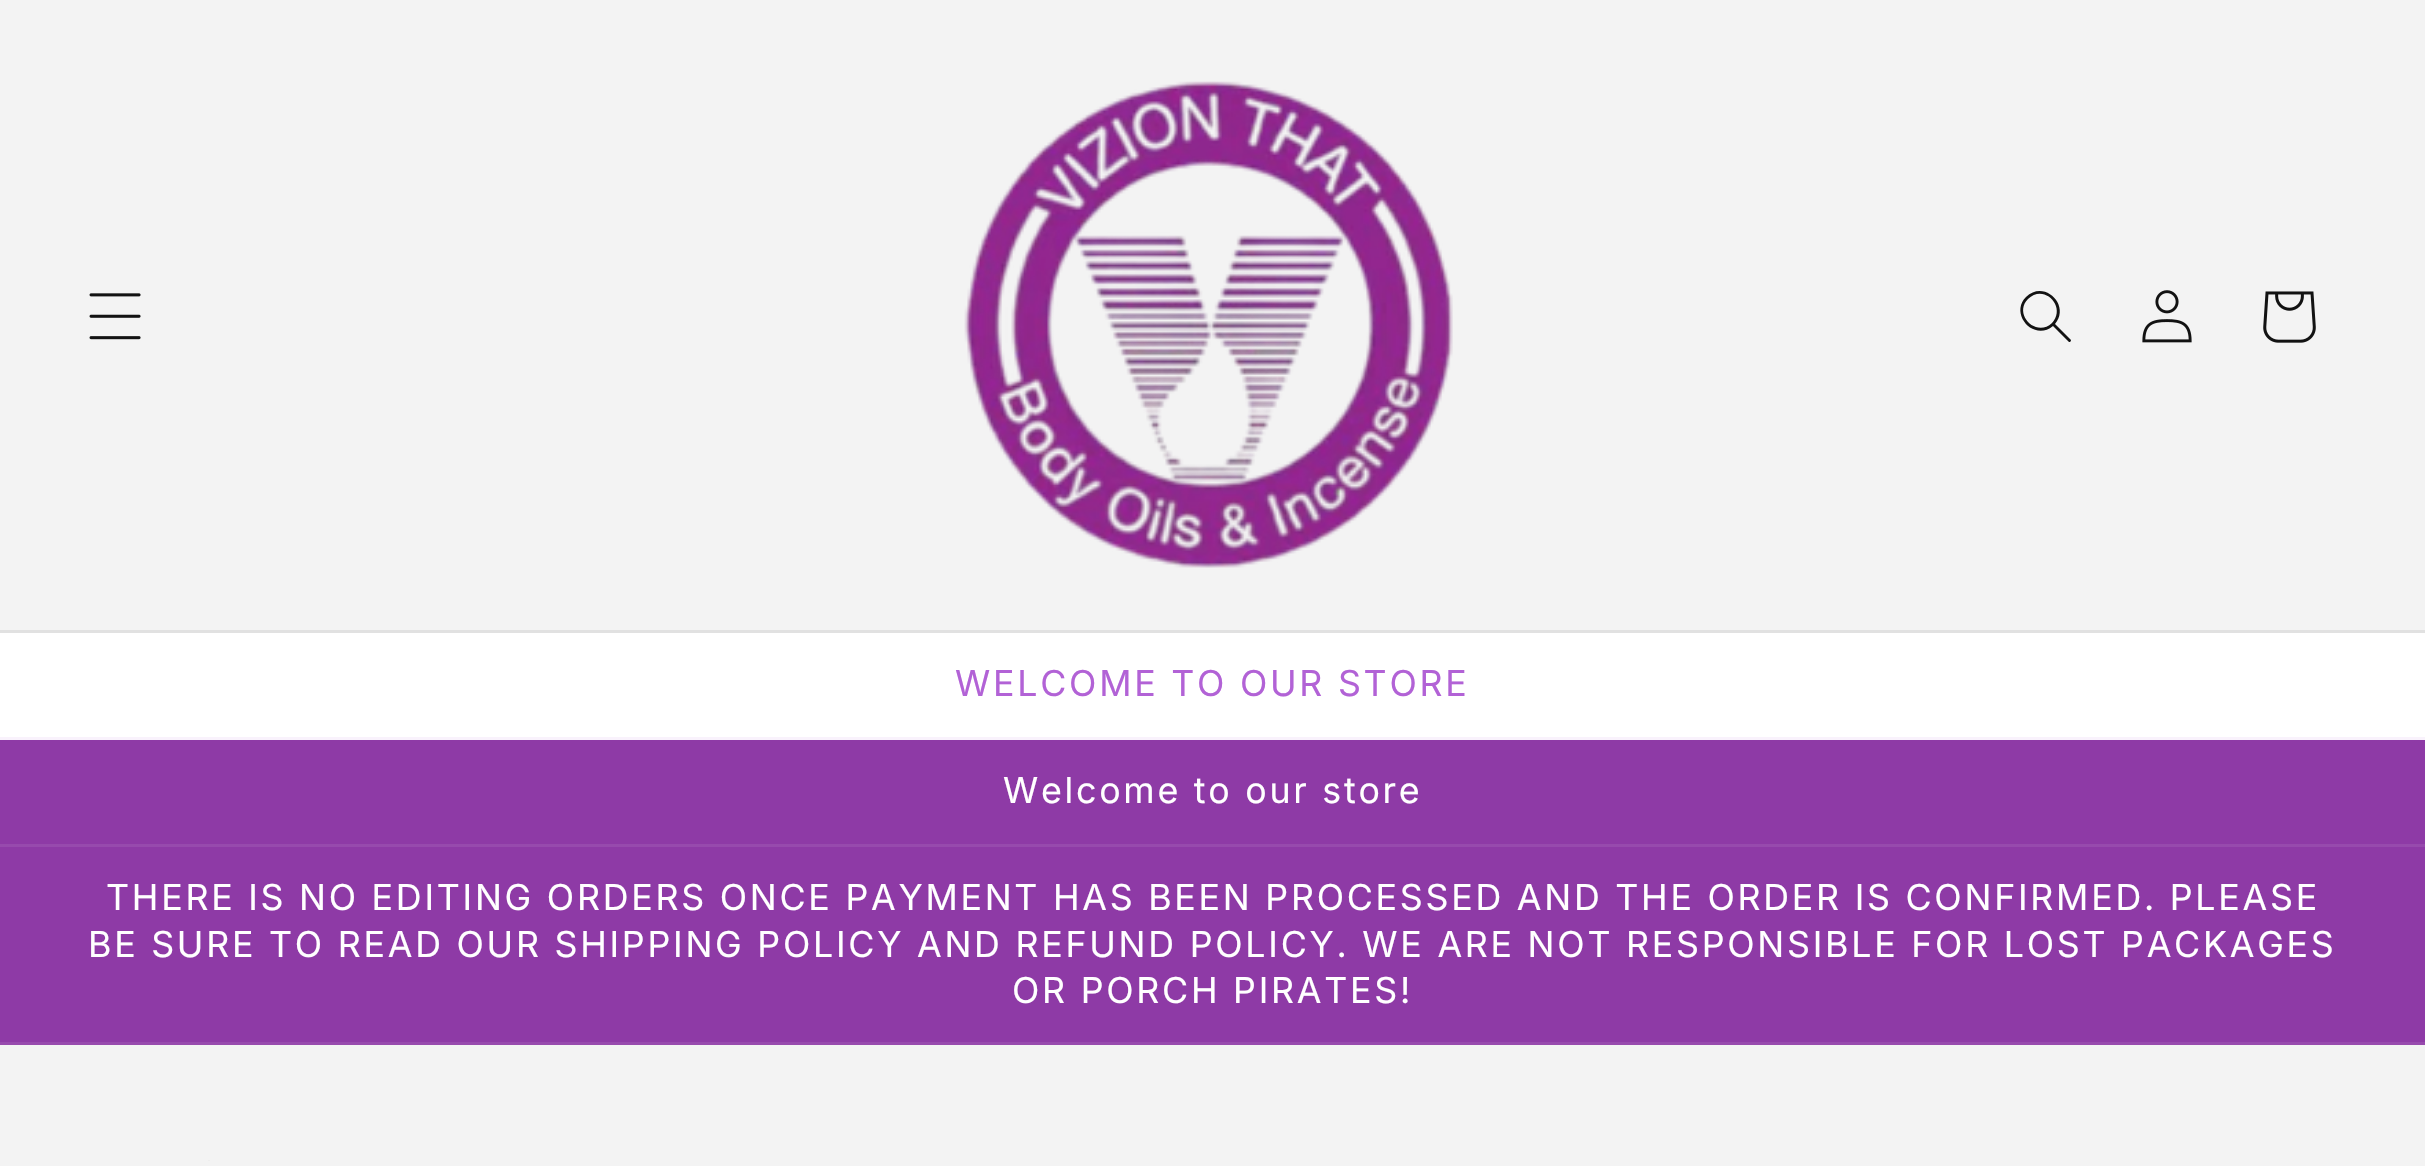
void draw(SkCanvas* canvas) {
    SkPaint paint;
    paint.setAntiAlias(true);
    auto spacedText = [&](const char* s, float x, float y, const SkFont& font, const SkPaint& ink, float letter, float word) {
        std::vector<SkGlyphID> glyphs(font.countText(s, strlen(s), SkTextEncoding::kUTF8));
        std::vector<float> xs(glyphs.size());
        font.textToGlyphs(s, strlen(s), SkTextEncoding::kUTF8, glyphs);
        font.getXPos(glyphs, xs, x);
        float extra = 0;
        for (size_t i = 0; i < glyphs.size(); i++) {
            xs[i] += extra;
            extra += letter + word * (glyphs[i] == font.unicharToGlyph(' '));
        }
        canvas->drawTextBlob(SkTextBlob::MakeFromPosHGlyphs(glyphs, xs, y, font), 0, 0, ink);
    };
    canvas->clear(0xFFFFFFFF);
    paint.setColor(0xFFF3F3F3);
    canvas->drawRect(SkRect::MakeXYWH(0, 0, 2425, 630), paint);
    paint.setColor(0xFFE1E1E1);
    canvas->drawRect(SkRect::MakeXYWH(0, 630, 2425, 3), paint);
    canvas->drawImageRect(SkImages::DeferredFromEncodedData(SkData::MakeFromFileName("img1.png")), SkRect::MakeXYWH(89, 293, 52, 47), SkSamplingOptions());
    canvas->drawImageRect(SkImages::DeferredFromEncodedData(SkData::MakeFromFileName("img2.png")), SkRect::MakeXYWH(964, 81, 489, 487), SkSamplingOptions());
    paint.setColor(0xFF121212);
    canvas->drawPath(SkPathBuilder(SkPathFillType::kEvenOdd).moveTo(2052, 323).cubicTo(2036, 338, 2013, 314, 2028, 299).cubicTo(2044, 283, 2067, 307, 2052, 323).moveTo(2053, 326).cubicTo(2034, 342, 2009, 314, 2026, 297).cubicTo(2044, 279, 2071, 305, 2055, 324).lineTo(2071, 340).cubicTo(2071, 342, 2069, 343, 2068, 341).close().detach(), paint);
    canvas->drawImageRect(SkImages::DeferredFromEncodedData(SkData::MakeFromFileName("img3.png")), SkRect::MakeXYWH(2142, 290, 50, 53), SkSamplingOptions());
    canvas->drawImageRect(SkImages::DeferredFromEncodedData(SkData::MakeFromFileName("img4.png")), SkRect::MakeXYWH(2263, 291, 53, 52), SkSamplingOptions());
    paint.setColor(0xFFF9F2FC);
    canvas->drawRect(SkRect::MakeXYWH(0, 737, 2425, 3), paint);
    SkFont font1(fontMgr->matchFamilyStyle("Inter", SkFontStyle::Normal()), 35.75f);
    font1.setSubpixel(true);
    paint.setColor(0xFFB262D6);
    spacedText("WELCOME TO OUR STORE", 955, 696, font1, paint, 2.75f, 0);
    paint.setColor(0xFF8E3AA6);
    canvas->drawRect(SkRect::MakeXYWH(0, 740, 2425, 104), paint);
    paint.setColor(0xFF974AAD);
    canvas->drawRect(SkRect::MakeXYWH(0, 844, 2425, 3), paint);
    paint.setColor(0xFFFFFFFF);
    spacedText("Welcome to our store", 1003, 803, font1, paint, 2.75f, 0);
    paint.setColor(0xFF8E3AA6);
    canvas->drawRect(SkRect::MakeXYWH(0, 847, 2425, 195), paint);
    paint.setColor(0xFF974AAD);
    canvas->drawRect(SkRect::MakeXYWH(0, 1042, 2425, 3), paint);
    paint.setColor(0xFFFFFFFF);
    spacedText("THERE IS NO EDITING ORDERS ONCE PAYMENT HAS BEEN PROCESSED AND THE ORDER IS CONFIRMED. PLEASE", 106, 910, font1, paint, 2.75f, 0);
    spacedText("BE SURE TO READ OUR SHIPPING POLICY AND REFUND POLICY. WE ARE NOT RESPONSIBLE FOR LOST PACKAGES", 88, 957, font1, paint, 2.75f, 0);
    spacedText("OR PORCH PIRATES!", 1012, 1003, font1, paint, 2.75f, 0);
    paint.setColor(0xFFF3F3F3);
    canvas->drawRect(SkRect::MakeXYWH(0, 1045, 2425, 121), paint);
    paint.setColor(0xFFEEEEEE);
    canvas->drawRect(SkRect::MakeXYWH(208, 1160, 2, 1), paint);
}
